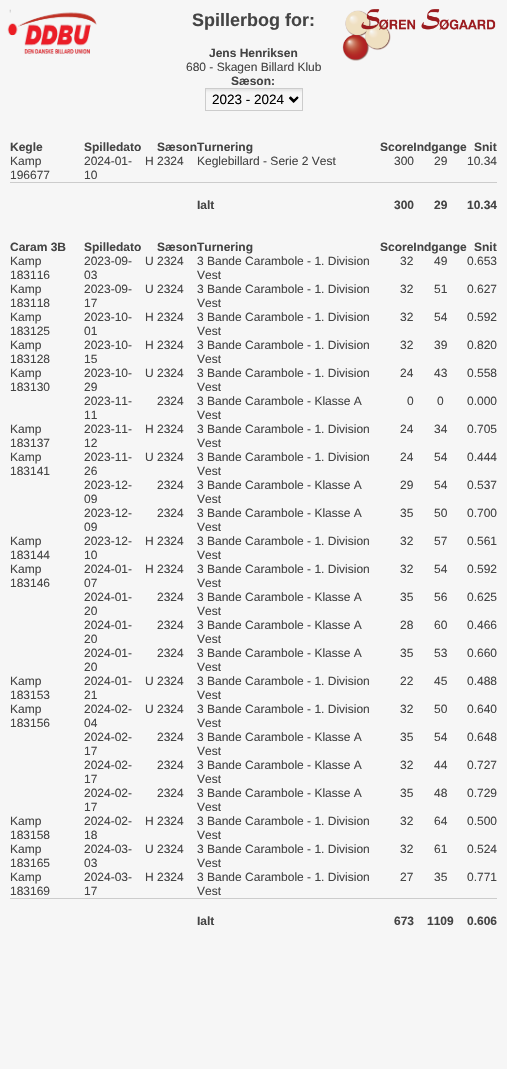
void draw(SkCanvas* canvas) {
    SkPaint paint;
    paint.setAntiAlias(true);
    canvas->clear(0xFFF6F6F6);
    canvas->drawImageRect(SkImages::DeferredFromEncodedData(SkData::MakeFromFileName("img1.png")), SkRect::MakeXYWH(7, 9, 90, 45), SkSamplingOptions());
    SkFont font1(fontMgr->matchFamilyStyle("Liberation Sans", SkFontStyle::Bold()), 18);
    font1.setSubpixel(true);
    paint.setColor(0xFF444444);
    canvas->drawString("Spillerbog for:", 192, 26, font1, paint);
    SkFont font2(fontMgr->matchFamilyStyle("Liberation Sans", SkFontStyle::Bold()), 12);
    font2.setSubpixel(true);
    canvas->drawString("Jens Henriksen", 209, 57, font2, paint);
    SkFont font3(fontMgr->matchFamilyStyle("Liberation Sans", SkFontStyle::Normal()), 12);
    font3.setSubpixel(true);
    canvas->drawString("680 - Skagen Billard Klub", 186, 71, font3, paint);
    canvas->drawString("Sæson:", 231, 85, font2, paint);
    canvas->drawImageRect(SkImages::DeferredFromEncodedData(SkData::MakeFromFileName("img2.png")), SkRect::MakeXYWH(206, 89, 96, 14), SkSamplingOptions());
    paint.setStyle(SkPaint::kStroke_Style);
    paint.setStrokeWidth(1);
    paint.setColor(0xFFCCCCCC);
    canvas->drawRect(SkRect::MakeXYWH(205.5f, 88.5f, 97, 22), paint);
    paint.setStrokeWidth(2);
    paint.setColor(0xFF000000);
    canvas->drawPath(SkPathBuilder().moveTo(289.5f, 97.5f).lineTo(293.5f, 101.5f).lineTo(297.5f, 97.5f).detach(), paint);
    SkFont font4(fontMgr->matchFamilyStyle("Liberation Sans", SkFontStyle::Normal()), 13.5f);
    font4.setSubpixel(true);
    paint.setStyle(SkPaint::kFill_Style);
    canvas->drawString("2023 - 2024", 212, 104, font4, paint);
    canvas->drawImageRect(SkImages::DeferredFromEncodedData(SkData::MakeFromFileName("img3.png")), SkRect::MakeXYWH(342, 9, 154, 52), SkSamplingOptions());
    paint.setColor(0xFF444444);
    canvas->drawString("Kegle", 10, 151, font2, paint);
    canvas->drawString("Spilledato", 84, 151, font2, paint);
    canvas->drawString("SæsonTurnering", 157, 151, font2, paint);
    canvas->drawString("ScoreIndgange", 380, 151, font2, paint);
    canvas->drawString("Snit", 474, 151, font2, paint);
    canvas->drawString("Kamp", 10, 165, font3, paint);
    canvas->drawString("196677", 10, 179, font3, paint);
    canvas->drawString("2024-01-", 84, 165, font3, paint);
    canvas->drawString("10", 84, 179, font3, paint);
    canvas->drawString("H 2324", 145, 165, font3, paint);
    canvas->drawString("Keglebillard - Serie 2 Vest", 197, 165, font3, paint);
    canvas->drawString("300", 394, 165, font3, paint);
    canvas->drawString("29", 434, 165, font3, paint);
    canvas->drawString("10.34", 467, 165, font3, paint);
    paint.setColor(0xFFCCCCCC);
    canvas->drawRect(SkRect::MakeXYWH(10, 182, 487, 1), paint);
    paint.setColor(0xFF444444);
    canvas->drawString("Ialt", 197, 209, font2, paint);
    canvas->drawString("300", 394, 209, font2, paint);
    canvas->drawString("29", 434, 209, font2, paint);
    canvas->drawString("10.34", 467, 209, font2, paint);
    canvas->drawString("Caram 3B", 10, 251, font2, paint);
    canvas->drawString("Spilledato", 84, 251, font2, paint);
    canvas->drawString("SæsonTurnering", 157, 251, font2, paint);
    canvas->drawString("ScoreIndgange", 380, 251, font2, paint);
    canvas->drawString("Snit", 474, 251, font2, paint);
    canvas->drawString("Kamp", 10, 265, font3, paint);
    canvas->drawString("183116", 10, 279, font3, paint);
    canvas->drawString("2023-09-", 84, 265, font3, paint);
    canvas->drawString("03", 84, 279, font3, paint);
    canvas->drawString("U 2324", 145, 265, font3, paint);
    canvas->drawString("3 Bande Carambole - 1. Division", 197, 265, font3, paint);
    canvas->drawString("Vest", 197, 279, font3, paint);
    canvas->drawString("32", 400, 265, font3, paint);
    canvas->drawString("49", 434, 265, font3, paint);
    canvas->drawString("0.653", 467, 265, font3, paint);
    canvas->drawString("Kamp", 10, 293, font3, paint);
    canvas->drawString("183118", 10, 307, font3, paint);
    canvas->drawString("2023-09-", 84, 293, font3, paint);
    canvas->drawString("17", 84, 307, font3, paint);
    canvas->drawString("U 2324", 145, 293, font3, paint);
    canvas->drawString("3 Bande Carambole - 1. Division", 197, 293, font3, paint);
    canvas->drawString("Vest", 197, 307, font3, paint);
    canvas->drawString("32", 400, 293, font3, paint);
    canvas->drawString("51", 434, 293, font3, paint);
    canvas->drawString("0.627", 467, 293, font3, paint);
    canvas->drawString("Kamp", 10, 321, font3, paint);
    canvas->drawString("183125", 10, 335, font3, paint);
    canvas->drawString("2023-10-", 84, 321, font3, paint);
    canvas->drawString("01", 84, 335, font3, paint);
    canvas->drawString("H 2324", 145, 321, font3, paint);
    canvas->drawString("3 Bande Carambole - 1. Division", 197, 321, font3, paint);
    canvas->drawString("Vest", 197, 335, font3, paint);
    canvas->drawString("32", 400, 321, font3, paint);
    canvas->drawString("54", 434, 321, font3, paint);
    canvas->drawString("0.592", 467, 321, font3, paint);
    canvas->drawString("Kamp", 10, 349, font3, paint);
    canvas->drawString("183128", 10, 363, font3, paint);
    canvas->drawString("2023-10-", 84, 349, font3, paint);
    canvas->drawString("15", 84, 363, font3, paint);
    canvas->drawString("H 2324", 145, 349, font3, paint);
    canvas->drawString("3 Bande Carambole - 1. Division", 197, 349, font3, paint);
    canvas->drawString("Vest", 197, 363, font3, paint);
    canvas->drawString("32", 400, 349, font3, paint);
    canvas->drawString("39", 434, 349, font3, paint);
    canvas->drawString("0.820", 467, 349, font3, paint);
    canvas->drawString("Kamp", 10, 377, font3, paint);
    canvas->drawString("183130", 10, 391, font3, paint);
    canvas->drawString("2023-10-", 84, 377, font3, paint);
    canvas->drawString("29", 84, 391, font3, paint);
    canvas->drawString("U 2324", 145, 377, font3, paint);
    canvas->drawString("3 Bande Carambole - 1. Division", 197, 377, font3, paint);
    canvas->drawString("Vest", 197, 391, font3, paint);
    canvas->drawString("24", 400, 377, font3, paint);
    canvas->drawString("43", 434, 377, font3, paint);
    canvas->drawString("0.558", 467, 377, font3, paint);
    canvas->drawString("2023-11-", 84, 405, font3, paint);
    canvas->drawString("11", 84, 419, font3, paint);
    canvas->drawString("2324", 157, 405, font3, paint);
    canvas->drawString("3 Bande Carambole - Klasse A", 197, 405, font3, paint);
    canvas->drawString("Vest", 197, 419, font3, paint);
    canvas->drawString("0", 407, 405, font3, paint);
    canvas->drawString("0", 437, 405, font3, paint);
    canvas->drawString("0.000", 467, 405, font3, paint);
    canvas->drawString("Kamp", 10, 433, font3, paint);
    canvas->drawString("183137", 10, 447, font3, paint);
    canvas->drawString("2023-11-", 84, 433, font3, paint);
    canvas->drawString("12", 84, 447, font3, paint);
    canvas->drawString("H 2324", 145, 433, font3, paint);
    canvas->drawString("3 Bande Carambole - 1. Division", 197, 433, font3, paint);
    canvas->drawString("Vest", 197, 447, font3, paint);
    canvas->drawString("24", 400, 433, font3, paint);
    canvas->drawString("34", 434, 433, font3, paint);
    canvas->drawString("0.705", 467, 433, font3, paint);
    canvas->drawString("Kamp", 10, 461, font3, paint);
    canvas->drawString("183141", 10, 475, font3, paint);
    canvas->drawString("2023-11-", 84, 461, font3, paint);
    canvas->drawString("26", 84, 475, font3, paint);
    canvas->drawString("U 2324", 145, 461, font3, paint);
    canvas->drawString("3 Bande Carambole - 1. Division", 197, 461, font3, paint);
    canvas->drawString("Vest", 197, 475, font3, paint);
    canvas->drawString("24", 400, 461, font3, paint);
    canvas->drawString("54", 434, 461, font3, paint);
    canvas->drawString("0.444", 467, 461, font3, paint);
    canvas->drawString("2023-12-", 84, 489, font3, paint);
    canvas->drawString("09", 84, 503, font3, paint);
    canvas->drawString("2324", 157, 489, font3, paint);
    canvas->drawString("3 Bande Carambole - Klasse A", 197, 489, font3, paint);
    canvas->drawString("Vest", 197, 503, font3, paint);
    canvas->drawString("29", 400, 489, font3, paint);
    canvas->drawString("54", 434, 489, font3, paint);
    canvas->drawString("0.537", 467, 489, font3, paint);
    canvas->drawString("2023-12-", 84, 517, font3, paint);
    canvas->drawString("09", 84, 531, font3, paint);
    canvas->drawString("2324", 157, 517, font3, paint);
    canvas->drawString("3 Bande Carambole - Klasse A", 197, 517, font3, paint);
    canvas->drawString("Vest", 197, 531, font3, paint);
    canvas->drawString("35", 400, 517, font3, paint);
    canvas->drawString("50", 434, 517, font3, paint);
    canvas->drawString("0.700", 467, 517, font3, paint);
    canvas->drawString("Kamp", 10, 545, font3, paint);
    canvas->drawString("183144", 10, 559, font3, paint);
    canvas->drawString("2023-12-", 84, 545, font3, paint);
    canvas->drawString("10", 84, 559, font3, paint);
    canvas->drawString("H 2324", 145, 545, font3, paint);
    canvas->drawString("3 Bande Carambole - 1. Division", 197, 545, font3, paint);
    canvas->drawString("Vest", 197, 559, font3, paint);
    canvas->drawString("32", 400, 545, font3, paint);
    canvas->drawString("57", 434, 545, font3, paint);
    canvas->drawString("0.561", 467, 545, font3, paint);
    canvas->drawString("Kamp", 10, 573, font3, paint);
    canvas->drawString("183146", 10, 587, font3, paint);
    canvas->drawString("2024-01-", 84, 573, font3, paint);
    canvas->drawString("07", 84, 587, font3, paint);
    canvas->drawString("H 2324", 145, 573, font3, paint);
    canvas->drawString("3 Bande Carambole - 1. Division", 197, 573, font3, paint);
    canvas->drawString("Vest", 197, 587, font3, paint);
    canvas->drawString("32", 400, 573, font3, paint);
    canvas->drawString("54", 434, 573, font3, paint);
    canvas->drawString("0.592", 467, 573, font3, paint);
    canvas->drawString("2024-01-", 84, 601, font3, paint);
    canvas->drawString("20", 84, 615, font3, paint);
    canvas->drawString("2324", 157, 601, font3, paint);
    canvas->drawString("3 Bande Carambole - Klasse A", 197, 601, font3, paint);
    canvas->drawString("Vest", 197, 615, font3, paint);
    canvas->drawString("35", 400, 601, font3, paint);
    canvas->drawString("56", 434, 601, font3, paint);
    canvas->drawString("0.625", 467, 601, font3, paint);
    canvas->drawString("2024-01-", 84, 629, font3, paint);
    canvas->drawString("20", 84, 643, font3, paint);
    canvas->drawString("2324", 157, 629, font3, paint);
    canvas->drawString("3 Bande Carambole - Klasse A", 197, 629, font3, paint);
    canvas->drawString("Vest", 197, 643, font3, paint);
    canvas->drawString("28", 400, 629, font3, paint);
    canvas->drawString("60", 434, 629, font3, paint);
    canvas->drawString("0.466", 467, 629, font3, paint);
    canvas->drawString("2024-01-", 84, 657, font3, paint);
    canvas->drawString("20", 84, 671, font3, paint);
    canvas->drawString("2324", 157, 657, font3, paint);
    canvas->drawString("3 Bande Carambole - Klasse A", 197, 657, font3, paint);
    canvas->drawString("Vest", 197, 671, font3, paint);
    canvas->drawString("35", 400, 657, font3, paint);
    canvas->drawString("53", 434, 657, font3, paint);
    canvas->drawString("0.660", 467, 657, font3, paint);
    canvas->drawString("Kamp", 10, 685, font3, paint);
    canvas->drawString("183153", 10, 699, font3, paint);
    canvas->drawString("2024-01-", 84, 685, font3, paint);
    canvas->drawString("21", 84, 699, font3, paint);
    canvas->drawString("U 2324", 145, 685, font3, paint);
    canvas->drawString("3 Bande Carambole - 1. Division", 197, 685, font3, paint);
    canvas->drawString("Vest", 197, 699, font3, paint);
    canvas->drawString("22", 400, 685, font3, paint);
    canvas->drawString("45", 434, 685, font3, paint);
    canvas->drawString("0.488", 467, 685, font3, paint);
    canvas->drawString("Kamp", 10, 713, font3, paint);
    canvas->drawString("183156", 10, 727, font3, paint);
    canvas->drawString("2024-02-", 84, 713, font3, paint);
    canvas->drawString("04", 84, 727, font3, paint);
    canvas->drawString("U 2324", 145, 713, font3, paint);
    canvas->drawString("3 Bande Carambole - 1. Division", 197, 713, font3, paint);
    canvas->drawString("Vest", 197, 727, font3, paint);
    canvas->drawString("32", 400, 713, font3, paint);
    canvas->drawString("50", 434, 713, font3, paint);
    canvas->drawString("0.640", 467, 713, font3, paint);
    canvas->drawString("2024-02-", 84, 741, font3, paint);
    canvas->drawString("17", 84, 755, font3, paint);
    canvas->drawString("2324", 157, 741, font3, paint);
    canvas->drawString("3 Bande Carambole - Klasse A", 197, 741, font3, paint);
    canvas->drawString("Vest", 197, 755, font3, paint);
    canvas->drawString("35", 400, 741, font3, paint);
    canvas->drawString("54", 434, 741, font3, paint);
    canvas->drawString("0.648", 467, 741, font3, paint);
    canvas->drawString("2024-02-", 84, 769, font3, paint);
    canvas->drawString("17", 84, 783, font3, paint);
    canvas->drawString("2324", 157, 769, font3, paint);
    canvas->drawString("3 Bande Carambole - Klasse A", 197, 769, font3, paint);
    canvas->drawString("Vest", 197, 783, font3, paint);
    canvas->drawString("32", 400, 769, font3, paint);
    canvas->drawString("44", 434, 769, font3, paint);
    canvas->drawString("0.727", 467, 769, font3, paint);
    canvas->drawString("2024-02-", 84, 797, font3, paint);
    canvas->drawString("17", 84, 811, font3, paint);
    canvas->drawString("2324", 157, 797, font3, paint);
    canvas->drawString("3 Bande Carambole - Klasse A", 197, 797, font3, paint);
    canvas->drawString("Vest", 197, 811, font3, paint);
    canvas->drawString("35", 400, 797, font3, paint);
    canvas->drawString("48", 434, 797, font3, paint);
    canvas->drawString("0.729", 467, 797, font3, paint);
    canvas->drawString("Kamp", 10, 825, font3, paint);
    canvas->drawString("183158", 10, 839, font3, paint);
    canvas->drawString("2024-02-", 84, 825, font3, paint);
    canvas->drawString("18", 84, 839, font3, paint);
    canvas->drawString("H 2324", 145, 825, font3, paint);
    canvas->drawString("3 Bande Carambole - 1. Division", 197, 825, font3, paint);
    canvas->drawString("Vest", 197, 839, font3, paint);
    canvas->drawString("32", 400, 825, font3, paint);
    canvas->drawString("64", 434, 825, font3, paint);
    canvas->drawString("0.500", 467, 825, font3, paint);
    canvas->drawString("Kamp", 10, 853, font3, paint);
    canvas->drawString("183165", 10, 867, font3, paint);
    canvas->drawString("2024-03-", 84, 853, font3, paint);
    canvas->drawString("03", 84, 867, font3, paint);
    canvas->drawString("U 2324", 145, 853, font3, paint);
    canvas->drawString("3 Bande Carambole - 1. Division", 197, 853, font3, paint);
    canvas->drawString("Vest", 197, 867, font3, paint);
    canvas->drawString("32", 400, 853, font3, paint);
    canvas->drawString("61", 434, 853, font3, paint);
    canvas->drawString("0.524", 467, 853, font3, paint);
    canvas->drawString("Kamp", 10, 881, font3, paint);
    canvas->drawString("183169", 10, 895, font3, paint);
    canvas->drawString("2024-03-", 84, 881, font3, paint);
    canvas->drawString("17", 84, 895, font3, paint);
    canvas->drawString("H 2324", 145, 881, font3, paint);
    canvas->drawString("3 Bande Carambole - 1. Division", 197, 881, font3, paint);
    canvas->drawString("Vest", 197, 895, font3, paint);
    canvas->drawString("27", 400, 881, font3, paint);
    canvas->drawString("35", 434, 881, font3, paint);
    canvas->drawString("0.771", 467, 881, font3, paint);
    paint.setColor(0xFFCCCCCC);
    canvas->drawRect(SkRect::MakeXYWH(10, 898, 487, 1), paint);
    paint.setColor(0xFF444444);
    canvas->drawString("Ialt", 197, 925, font2, paint);
    canvas->drawString("673", 394, 925, font2, paint);
    canvas->drawString("1109", 427, 925, font2, paint);
    canvas->drawString("0.606", 467, 925, font2, paint);
}
